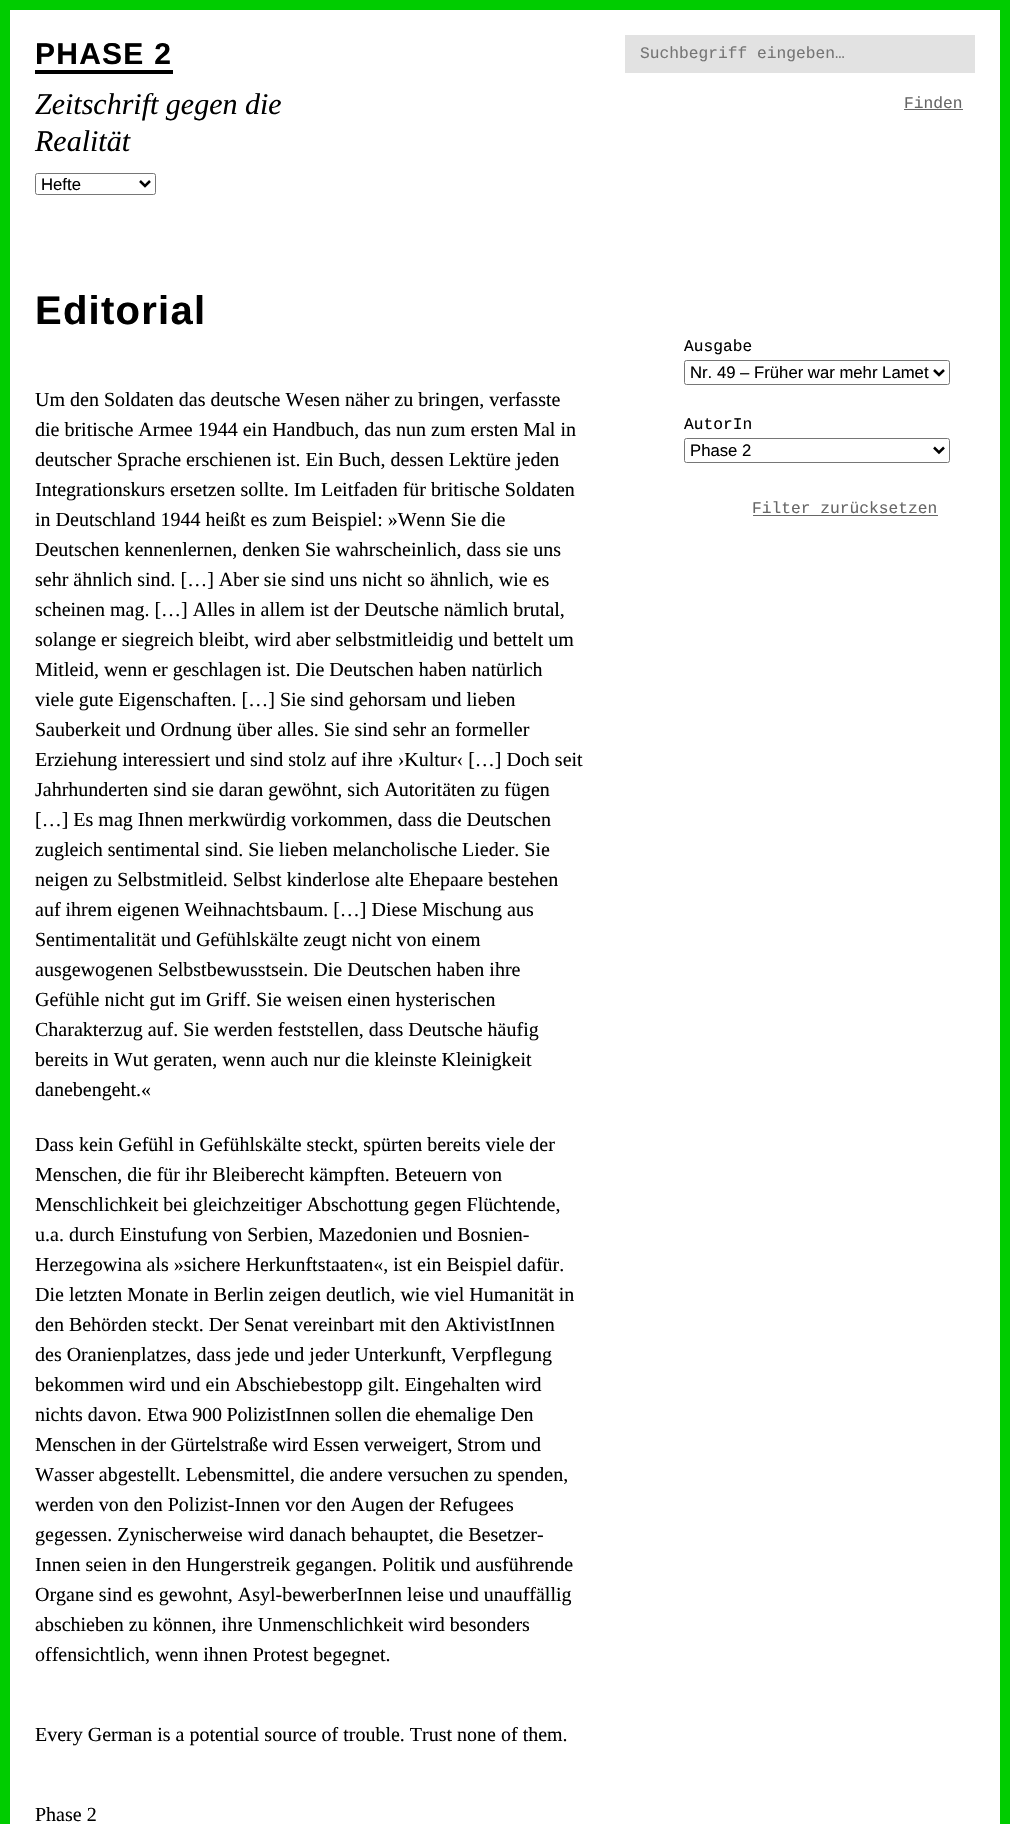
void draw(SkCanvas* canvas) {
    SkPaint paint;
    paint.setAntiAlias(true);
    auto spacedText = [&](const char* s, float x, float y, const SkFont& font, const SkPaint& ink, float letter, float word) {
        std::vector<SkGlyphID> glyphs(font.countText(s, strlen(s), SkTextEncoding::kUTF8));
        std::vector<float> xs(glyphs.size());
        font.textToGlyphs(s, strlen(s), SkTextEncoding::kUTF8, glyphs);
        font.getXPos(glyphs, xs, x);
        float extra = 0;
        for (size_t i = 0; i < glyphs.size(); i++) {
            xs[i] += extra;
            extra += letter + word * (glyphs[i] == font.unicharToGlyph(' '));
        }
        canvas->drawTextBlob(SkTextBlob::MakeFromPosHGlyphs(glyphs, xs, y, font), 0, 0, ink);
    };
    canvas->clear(0xFFFFFFFF);
    paint.setStyle(SkPaint::kStroke_Style);
    paint.setStrokeWidth(10);
    paint.setColor(0xFF00CC00);
    canvas->drawRect(SkRect::MakeXYWH(5, 5, 1000, 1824), paint);
    SkFont font1(fontMgr->matchFamilyStyle("Liberation Sans", SkFontStyle::Bold()), 30);
    font1.setSubpixel(true);
    paint.setStyle(SkPaint::kFill_Style);
    paint.setColor(0xFF000000);
    spacedText("PHASE 2", 35, 64, font1, paint, 1.25f, 0);
    canvas->drawRect(SkRect::MakeXYWH(35, 70, 138, 4), paint);
    SkFont font2(fontMgr->matchFamilyStyle("Liberation Serif", SkFontStyle::Italic()), 30);
    font2.setSubpixel(true);
    canvas->drawString("Zeitschrift gegen die", 35, 114, font2, paint);
    canvas->drawString("Realität", 35, 151, font2, paint);
    paint.setStyle(SkPaint::kStroke_Style);
    paint.setStrokeWidth(1);
    paint.setColor(0xFF767676);
    canvas->drawRoundRect(SkRect::MakeXYWH(35.5f, 173.5f, 120, 21), 2, 2, paint);
    paint.setStrokeWidth(2.5f);
    paint.setColor(0xFF000000);
    canvas->drawPath(SkPathBuilder().moveTo(140, 181).lineTo(145, 186).lineTo(150, 181).detach(), paint);
    SkFont font3(fontMgr->matchFamilyStyle("Liberation Sans", SkFontStyle::Normal()), 16.7f);
    font3.setSubpixel(true);
    paint.setStyle(SkPaint::kFill_Style);
    canvas->drawString("Hefte", 41, 190, font3, paint);
    paint.setColor(0xFFE2E2E2);
    canvas->drawRect(SkRect::MakeXYWH(625, 35, 350, 38), paint);
    SkFont font4(fontMgr->matchFamilyStyle("Liberation Mono", SkFontStyle::Normal()), 16.25f);
    font4.setSubpixel(true);
    paint.setColor(0xFF757575);
    canvas->drawString("Suchbegriff eingeben…", 640, 58, font4, paint);
    paint.setColor(0xFF666666);
    canvas->drawString("Finden", 904, 108, font4, paint);
    canvas->drawRect(SkRect::MakeXYWH(904, 109, 59, 1), paint);
    SkFont font5(fontMgr->matchFamilyStyle("Liberation Sans", SkFontStyle::Bold()), 40);
    font5.setSubpixel(true);
    paint.setColor(0xFF000000);
    spacedText("Editorial", 35, 324, font5, paint, 1.25f, 0);
    SkFont font6(fontMgr->matchFamilyStyle("Liberation Serif", SkFontStyle::Normal()), 20);
    font6.setSubpixel(true);
    canvas->drawString("Um den Soldaten das deutsche Wesen näher zu bringen, verfasste", 35, 406, font6, paint);
    canvas->drawString("die britische Armee 1944 ein Handbuch, das nun zum ersten Mal in", 35, 436, font6, paint);
    canvas->drawString("deutscher Sprache erschienen ist. Ein Buch, dessen Lektüre jeden", 35, 466, font6, paint);
    canvas->drawString("Integrationskurs ersetzen sollte. Im Leitfaden für britische Soldaten", 35, 496, font6, paint);
    canvas->drawString("in Deutschland 1944 heißt es zum Beispiel: »Wenn Sie die", 35, 526, font6, paint);
    canvas->drawString("Deutschen kennenlernen, denken Sie wahrscheinlich, dass sie uns", 35, 556, font6, paint);
    canvas->drawString("sehr ähnlich sind. […] Aber sie sind uns nicht so ähnlich, wie es", 35, 586, font6, paint);
    canvas->drawString("scheinen mag. […] Alles in allem ist der Deutsche nämlich brutal,", 35, 616, font6, paint);
    canvas->drawString("solange er siegreich bleibt, wird aber selbstmitleidig und bettelt um", 35, 646, font6, paint);
    canvas->drawString("Mitleid, wenn er geschlagen ist. Die Deutschen haben natürlich", 35, 676, font6, paint);
    canvas->drawString("viele gute Eigenschaften. […] Sie sind gehorsam und lieben", 35, 706, font6, paint);
    canvas->drawString("Sauberkeit und Ordnung über alles. Sie sind sehr an formeller", 35, 736, font6, paint);
    canvas->drawString("Erziehung interessiert und sind stolz auf ihre ›Kultur‹ […] Doch seit", 35, 766, font6, paint);
    canvas->drawString("Jahrhunderten sind sie daran gewöhnt, sich Autoritäten zu fügen", 35, 796, font6, paint);
    canvas->drawString("[…] Es mag Ihnen merkwürdig vorkommen, dass die Deutschen", 35, 826, font6, paint);
    canvas->drawString("zugleich sentimental sind. Sie lieben melancholische Lieder. Sie", 35, 856, font6, paint);
    canvas->drawString("neigen zu Selbstmitleid. Selbst kinderlose alte Ehepaare bestehen", 35, 886, font6, paint);
    canvas->drawString("auf ihrem eigenen Weihnachtsbaum. […] Diese Mischung aus", 35, 916, font6, paint);
    canvas->drawString("Sentimentalität und Gefühlskälte zeugt nicht von einem", 35, 946, font6, paint);
    canvas->drawString("ausgewogenen Selbstbewusstsein. Die Deutschen haben ihre", 35, 976, font6, paint);
    canvas->drawString("Gefühle nicht gut im Griff. Sie weisen einen hysterischen", 35, 1006, font6, paint);
    canvas->drawString("Charakterzug auf. Sie werden feststellen, dass Deutsche häufig", 35, 1036, font6, paint);
    canvas->drawString("bereits in Wut geraten, wenn auch nur die kleinste Kleinigkeit", 35, 1066, font6, paint);
    canvas->drawString("danebengeht.«", 35, 1096, font6, paint);
    canvas->drawString("Dass kein Gefühl in Gefühlskälte steckt, spürten bereits viele der", 35, 1151, font6, paint);
    canvas->drawString("Menschen, die für ihr Bleiberecht kämpften. Beteuern von", 35, 1181, font6, paint);
    canvas->drawString("Menschlichkeit bei gleichzeitiger Abschottung gegen Flüchtende,", 35, 1211, font6, paint);
    canvas->drawString("u.a. durch Einstufung von Serbien, Mazedonien und Bosnien-", 35, 1241, font6, paint);
    canvas->drawString("Herzegowina als »sichere Herkunftstaaten«, ist ein Beispiel dafür.", 35, 1271, font6, paint);
    canvas->drawString("Die letzten Monate in Berlin zeigen deutlich, wie viel Humanität in", 35, 1301, font6, paint);
    canvas->drawString("den Behör", 35, 1331, font6, paint);
    canvas->drawString("den", 118, 1331, font6, paint);
    canvas->drawString("steckt. Der Senat vereinbart mit den AktivistInnen", 152, 1331, font6, paint);
    canvas->drawString("des Oranienplatzes, dass jede und jeder Unter", 35, 1361, font6, paint);
    spacedText("kunft,", 400, 1361, font6, paint, -0.17f, 0);
    canvas->drawString("Verpflegung", 451, 1361, font6, paint);
    canvas->drawString("bekommen wird und ein Abschiebestopp gilt. Eingehalten wird", 35, 1391, font6, paint);
    canvas->drawString("nichts davon.", 35, 1421, font6, paint);
    spacedText("Etwa 900 PolizistInnen sollen die ehemalige Den", 147, 1421, font6, paint, -0.17f, 0);
    spacedText("Menschen in der Gürtelstraße wird Essen verweigert,", 35, 1451, font6, paint, -0.17f, 0);
    canvas->drawString("Strom und", 457, 1451, font6, paint);
    canvas->drawString("Wasser abgestellt. Lebensmittel, die andere versuchen zu spenden,", 35, 1481, font6, paint);
    canvas->drawString("werden von den Polizist-Innen vor den Augen der Refugees", 35, 1511, font6, paint);
    canvas->drawString("gegessen. Zynischerweise wird danach behauptet, die Besetzer-", 35, 1541, font6, paint);
    canvas->drawString("Innen seien in den Hungerstreik gegangen. Politik und ausführende", 35, 1571, font6, paint);
    canvas->drawString("Organe sind es gewohnt, Asyl-bewerberInnen leise und unauffällig", 35, 1601, font6, paint);
    canvas->drawString("abschieben zu können, ihre Unmenschlichkeit wird besonders", 35, 1631, font6, paint);
    canvas->drawString("offensichtlich, wenn ihnen Protest begegnet.", 35, 1661, font6, paint);
    canvas->drawString("Every German is a potential source of trouble. Trust none of them.", 35, 1741, font6, paint);
    canvas->drawString("Phase 2", 35, 1821, font6, paint);
    canvas->drawString("Ausgabe", 684, 351, font4, paint);
    paint.setStyle(SkPaint::kStroke_Style);
    paint.setStrokeWidth(1);
    paint.setColor(0xFF767676);
    canvas->drawRoundRect(SkRect::MakeXYWH(684.5f, 360.5f, 265, 24), 2, 2, paint);
    paint.setStrokeWidth(2.5f);
    paint.setColor(0xFF000000);
    canvas->drawPath(SkPathBuilder().moveTo(934, 370).lineTo(939, 375).lineTo(944, 370).detach(), paint);
    paint.setStyle(SkPaint::kFill_Style);
    canvas->drawString("Nr. 49 – Früher war mehr Lamet", 690, 378, font3, paint);
    canvas->drawString("AutorIn", 684, 429, font4, paint);
    paint.setStyle(SkPaint::kStroke_Style);
    paint.setStrokeWidth(1);
    paint.setColor(0xFF767676);
    canvas->drawRoundRect(SkRect::MakeXYWH(684.5f, 438.5f, 265, 24), 2, 2, paint);
    paint.setStrokeWidth(2.5f);
    paint.setColor(0xFF000000);
    canvas->drawPath(SkPathBuilder().moveTo(934, 447.5f).lineTo(939, 452.5f).lineTo(944, 447.5f).detach(), paint);
    paint.setStyle(SkPaint::kFill_Style);
    canvas->drawString("Phase 2", 690, 456, font3, paint);
    paint.setColor(0xFF666666);
    canvas->drawString("Filter zurücksetzen", 752, 513, font4, paint);
    canvas->drawRect(SkRect::MakeXYWH(753, 515, 185, 1), paint);
}
